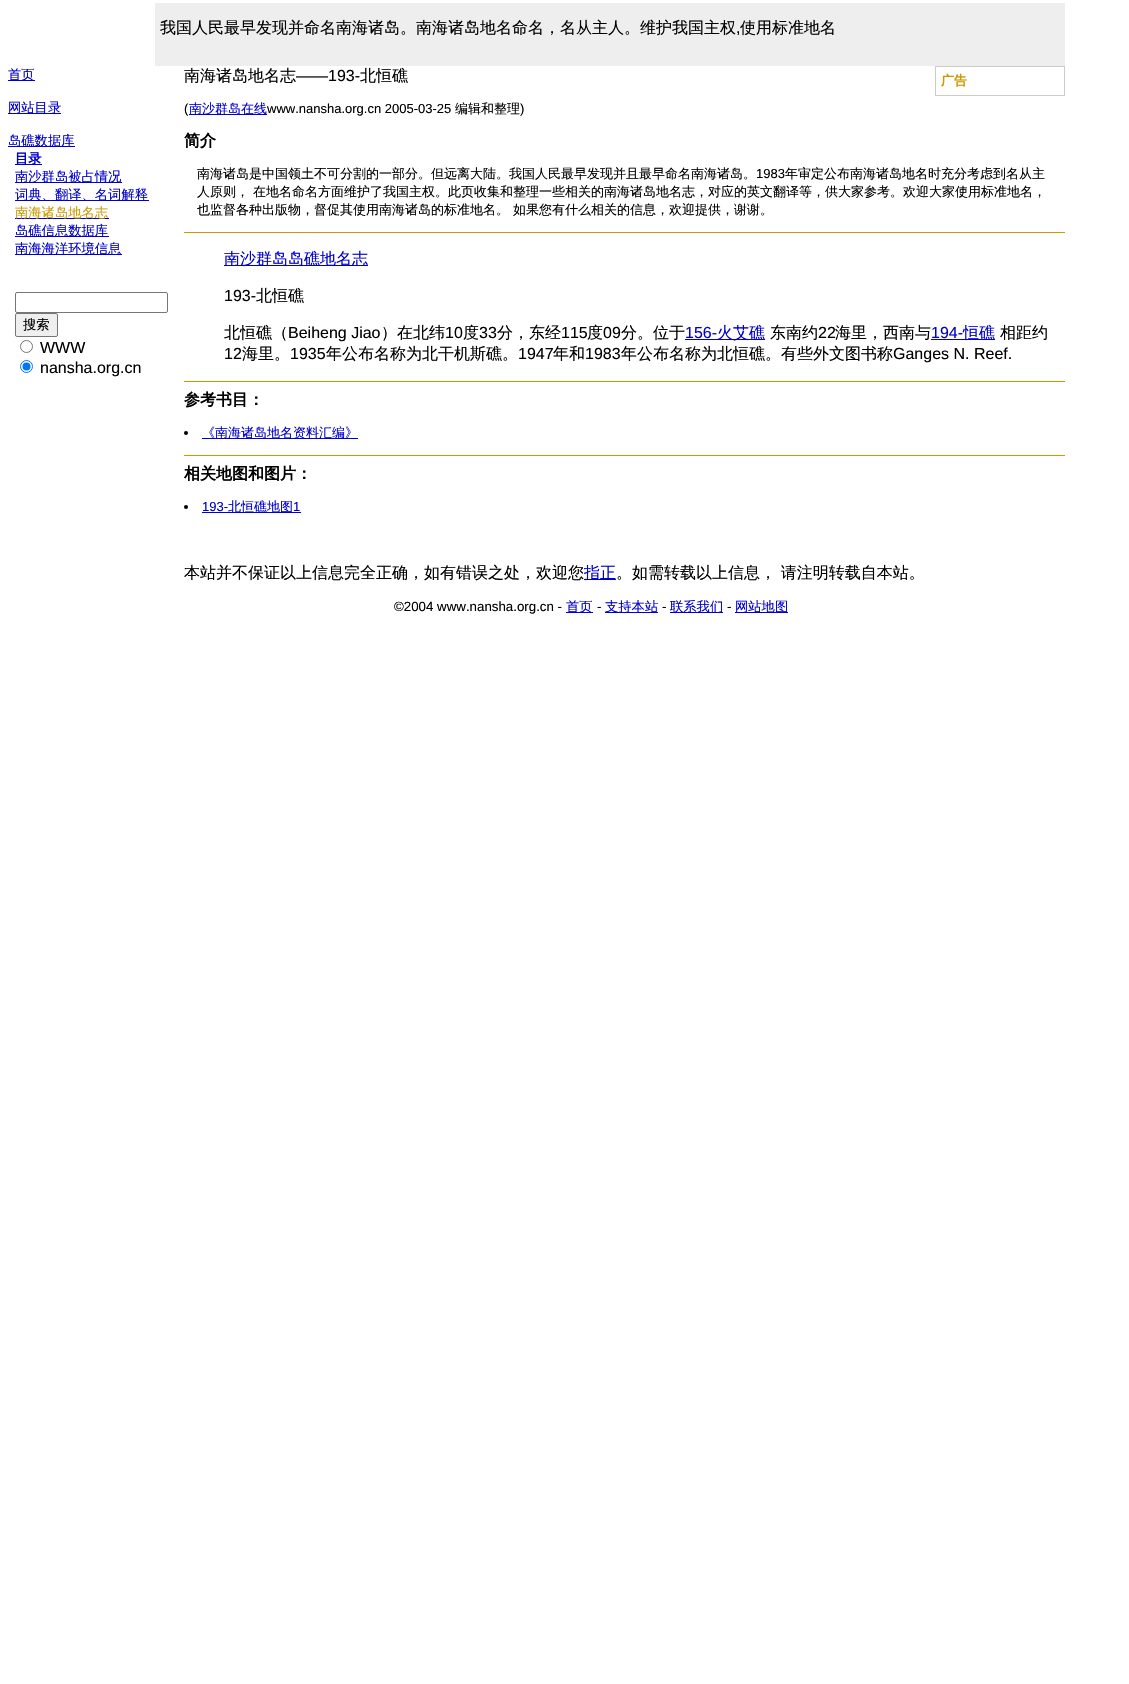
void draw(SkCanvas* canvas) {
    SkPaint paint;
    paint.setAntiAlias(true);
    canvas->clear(0xFFFFFFFF);
    paint.setColor(0xFFEEEEEE);
    canvas->drawRect(SkRect::MakeXYWH(155, 3, 910, 63), paint);
    SkFont font1(fontMgr->matchFamilyStyle("WenQuanYi Zen Hei", SkFontStyle(500, SkFontStyle::kNormal_Width, SkFontStyle::kUpright_Slant)), 16);
    font1.setSubpixel(true);
    paint.setColor(0xFF000000);
    canvas->drawString("我国人民最早发现并命名南海诸岛。南海诸岛地名命名，名从主人。维护我国主权", 160, 33, font1, paint);
    SkFont font2(fontMgr->matchFamilyStyle("Liberation Sans", SkFontStyle::Normal()), 16);
    font2.setSubpixel(true);
    canvas->drawString(",", 736, 33, font2, paint);
    canvas->drawString("使用标准地名", 740, 33, font1, paint);
    paint.setColor(0xFF0000CC);
    canvas->drawRect(SkRect::MakeXYWH(8, 80, 27, 1), paint);
    SkFont font3(fontMgr->matchFamilyStyle("WenQuanYi Zen Hei", SkFontStyle(500, SkFontStyle::kNormal_Width, SkFontStyle::kUpright_Slant)), 13.3f);
    font3.setSubpixel(true);
    canvas->drawString("首页", 8, 79, font3, paint);
    canvas->drawRect(SkRect::MakeXYWH(8, 113, 53, 1), paint);
    canvas->drawString("网站目录", 8, 112, font3, paint);
    canvas->drawRect(SkRect::MakeXYWH(8, 146, 67, 1), paint);
    canvas->drawString("岛礁数据库", 8, 145, font3, paint);
    canvas->drawRect(SkRect::MakeXYWH(15, 164, 27, 1), paint);
    SkFont font4(fontMgr->matchFamilyStyle("WenQuanYi Zen Hei", SkFontStyle::Bold()), 13.3f);
    font4.setSubpixel(true);
    canvas->drawString("目录", 15, 163, font4, paint);
    canvas->drawRect(SkRect::MakeXYWH(15, 182, 107, 1), paint);
    canvas->drawString("南沙群岛被占情况", 15, 181, font3, paint);
    canvas->drawRect(SkRect::MakeXYWH(15, 200, 134, 1), paint);
    canvas->drawString("词典、翻译、名词解释", 15, 199, font3, paint);
    canvas->drawRect(SkRect::MakeXYWH(15, 218, 94, 1), paint);
    paint.setColor(0xFFCC9900);
    canvas->drawString("南海诸岛地名志", 15, 217, font3, paint);
    paint.setColor(0xFF0000CC);
    canvas->drawRect(SkRect::MakeXYWH(15, 236, 94, 1), paint);
    canvas->drawString("岛礁信息数据库", 15, 235, font3, paint);
    canvas->drawRect(SkRect::MakeXYWH(15, 254, 107, 1), paint);
    canvas->drawString("南海海洋环境信息", 15, 253, font3, paint);
    paint.setStyle(SkPaint::kStroke_Style);
    paint.setStrokeWidth(1);
    paint.setColor(0xFF767676);
    canvas->drawRoundRect(SkRect::MakeXYWH(15.5f, 292.5f, 152, 20), 1.5f, 1.5f, paint);
    paint.setStyle(SkPaint::kFill_Style);
    paint.setColor(0xFFEFEFEF);
    canvas->drawRoundRect(SkRect::MakeXYWH(15.5f, 313.5f, 42, 23), 1.5f, 1.5f, paint);
    paint.setStyle(SkPaint::kStroke_Style);
    paint.setColor(0xFF767676);
    canvas->drawRoundRect(SkRect::MakeXYWH(15.5f, 313.5f, 42, 23), 1.5f, 1.5f, paint);
    paint.setStyle(SkPaint::kFill_Style);
    paint.setColor(0xFF000000);
    canvas->drawString("搜索", 23, 329, font3, paint);
    paint.setStyle(SkPaint::kStroke_Style);
    paint.setColor(0xFF767676);
    canvas->drawCircle(26.5f, 346.5f, 6, paint);
    paint.setStyle(SkPaint::kFill_Style);
    paint.setColor(0xFF000000);
    canvas->drawString("WWW", 40, 353, font2, paint);
    paint.setStyle(SkPaint::kStroke_Style);
    paint.setColor(0xFF0075FF);
    canvas->drawCircle(26.5f, 366.5f, 6, paint);
    paint.setStyle(SkPaint::kFill_Style);
    canvas->drawCircle(26.5f, 366.5f, 4, paint);
    paint.setColor(0xFF000000);
    canvas->drawString("nansha.org.cn", 40, 373, font2, paint);
    canvas->drawString("南海诸岛地名志", 184, 81, font1, paint);
    canvas->drawString("——193-", 296, 81, font2, paint);
    canvas->drawString("北恒礁", 360, 81, font1, paint);
    paint.setColor(0xFFCCCCCC);
    canvas->drawRect(SkRect::MakeXYWH(935, 66, 130, 30), paint);
    paint.setColor(0xFFFFFFFF);
    canvas->drawRect(SkRect::MakeXYWH(936, 67, 128, 28), paint);
    SkFont font5(fontMgr->matchFamilyStyle("WenQuanYi Zen Hei", SkFontStyle::Bold()), 13);
    font5.setSubpixel(true);
    paint.setColor(0xFFCC9900);
    canvas->drawString("广告", 941, 85, font5, paint);
    SkFont font6(fontMgr->matchFamilyStyle("Liberation Sans", SkFontStyle::Normal()), 13);
    font6.setSubpixel(true);
    paint.setColor(0xFF000000);
    canvas->drawString("(", 184, 113, font6, paint);
    paint.setColor(0xFF0000CC);
    canvas->drawRect(SkRect::MakeXYWH(189, 114, 78, 1), paint);
    SkFont font7(fontMgr->matchFamilyStyle("WenQuanYi Zen Hei", SkFontStyle(500, SkFontStyle::kNormal_Width, SkFontStyle::kUpright_Slant)), 13);
    font7.setSubpixel(true);
    canvas->drawString("南沙群岛在线", 189, 113, font7, paint);
    paint.setColor(0xFF000000);
    canvas->drawString("www.nansha.org.cn 2005-03-25", 267, 113, font6, paint);
    canvas->drawString("编辑和整理", 455, 113, font7, paint);
    canvas->drawString(")", 520, 113, font6, paint);
    SkFont font8(fontMgr->matchFamilyStyle("WenQuanYi Zen Hei", SkFontStyle::Bold()), 16);
    font8.setSubpixel(true);
    canvas->drawString("简介", 184, 146, font8, paint);
    canvas->drawString("南海诸岛是中国领土不可分割的一部分。但远离大陆。我国人民最早发现并且最早命名南海诸岛。", 197, 178, font7, paint);
    canvas->drawString("1983", 756, 178, font6, paint);
    canvas->drawString("年审定公布南海诸岛地名时充分考虑到名从主", 785, 178, font7, paint);
    canvas->drawString("人原则， 在地名命名方面维护了我国主权。此页收集和整理一些相关的南海诸岛地名志，对应的英文翻译等，供大家参考。欢迎大家使用标准地名，", 197, 196, font7, paint);
    canvas->drawString("也监督各种出版物，督促其使用南海诸岛的标准地名。 如果您有什么相关的信息，欢迎提供，谢谢。", 197, 214, font7, paint);
    paint.setColor(0xFFCC9900);
    canvas->drawRect(SkRect::MakeXYWH(184, 232, 881, 1), paint);
    paint.setColor(0xFF0000CC);
    canvas->drawRect(SkRect::MakeXYWH(224, 265, 144, 1), paint);
    canvas->drawString("南沙群岛岛礁地名志", 224, 264, font1, paint);
    paint.setColor(0xFF000000);
    canvas->drawString("193-", 224, 301, font2, paint);
    canvas->drawString("北恒礁", 256, 301, font1, paint);
    canvas->drawString("北恒礁（", 224, 338, font1, paint);
    canvas->drawString("Beiheng Jiao", 288, 338, font2, paint);
    canvas->drawString("）在北纬", 381, 338, font1, paint);
    canvas->drawString("10", 445, 338, font2, paint);
    canvas->drawString("度", 463, 338, font1, paint);
    canvas->drawString("33", 479, 338, font2, paint);
    canvas->drawString("分，东经", 497, 338, font1, paint);
    canvas->drawString("115", 561, 338, font2, paint);
    canvas->drawString("度", 587, 338, font1, paint);
    canvas->drawString("09", 603, 338, font2, paint);
    canvas->drawString("分。位于", 621, 338, font1, paint);
    paint.setColor(0xFF0000CC);
    canvas->drawString("156-", 685, 338, font2, paint);
    canvas->drawRect(SkRect::MakeXYWH(685, 339, 80, 1), paint);
    canvas->drawString("火艾礁", 717, 338, font1, paint);
    paint.setColor(0xFF000000);
    canvas->drawString("东南约", 770, 338, font1, paint);
    canvas->drawString("22", 818, 338, font2, paint);
    canvas->drawString("海里，西南与", 835, 338, font1, paint);
    paint.setColor(0xFF0000CC);
    canvas->drawString("194-", 931, 338, font2, paint);
    canvas->drawRect(SkRect::MakeXYWH(931, 339, 64, 1), paint);
    canvas->drawString("恒礁", 963, 338, font1, paint);
    paint.setColor(0xFF000000);
    canvas->drawString("相距约", 1000, 338, font1, paint);
    canvas->drawString("12", 224, 359, font2, paint);
    canvas->drawString("海里。", 242, 359, font1, paint);
    canvas->drawString("1935", 290, 359, font2, paint);
    canvas->drawString("年公布名称为北干机斯礁。", 326, 359, font1, paint);
    canvas->drawString("1947", 518, 359, font2, paint);
    canvas->drawString("年和", 553, 359, font1, paint);
    canvas->drawString("1983", 585, 359, font2, paint);
    canvas->drawString("年公布名称为北恒礁。有些外文图书称", 621, 359, font1, paint);
    canvas->drawString("Ganges N. Reef.", 893, 359, font2, paint);
    paint.setColor(0xFFCC9900);
    canvas->drawRect(SkRect::MakeXYWH(184, 381, 881, 1), paint);
    paint.setColor(0xFF000000);
    canvas->drawString("参考书目：", 184, 405, font8, paint);
    canvas->drawCircle(186, 433, 2, paint);
    paint.setColor(0xFF0000CC);
    canvas->drawRect(SkRect::MakeXYWH(202, 438, 156, 1), paint);
    canvas->drawString("《南海诸岛地名资料汇编》", 202, 437, font7, paint);
    paint.setColor(0xFFCC9900);
    canvas->drawRect(SkRect::MakeXYWH(184, 455, 881, 1), paint);
    paint.setColor(0xFF000000);
    canvas->drawString("相关地图和图片：", 184, 479, font8, paint);
    canvas->drawCircle(186, 507, 2, paint);
    paint.setColor(0xFF0000CC);
    canvas->drawString("193-", 202, 511, font6, paint);
    canvas->drawRect(SkRect::MakeXYWH(202, 512, 99, 1), paint);
    canvas->drawString("北恒礁地图", 228, 511, font7, paint);
    canvas->drawString("1", 293, 511, font6, paint);
    paint.setColor(0xFF000000);
    canvas->drawString("本站并不保证以上信息完全正确，如有错误之处，欢迎您", 184, 578, font1, paint);
    paint.setColor(0xFF0000CC);
    canvas->drawRect(SkRect::MakeXYWH(584, 579, 32, 1), paint);
    canvas->drawString("指正", 584, 578, font1, paint);
    paint.setColor(0xFF000000);
    canvas->drawString("。如需转载以上信息， 请注明转载自本站。", 616, 578, font1, paint);
    SkFont font9(fontMgr->matchFamilyStyle("Liberation Sans", SkFontStyle::Normal()), 13.3f);
    font9.setSubpixel(true);
    canvas->drawString("©2004 www.nansha.org.cn -", 394, 611, font9, paint);
    paint.setColor(0xFF0000CC);
    canvas->drawRect(SkRect::MakeXYWH(566, 612, 27, 1), paint);
    canvas->drawString("首页", 566, 611, font3, paint);
    paint.setColor(0xFF000000);
    canvas->drawString("-", 597, 611, font9, paint);
    paint.setColor(0xFF0000CC);
    canvas->drawRect(SkRect::MakeXYWH(605, 612, 53, 1), paint);
    canvas->drawString("支持本站", 605, 611, font3, paint);
    paint.setColor(0xFF000000);
    canvas->drawString("-", 662, 611, font9, paint);
    paint.setColor(0xFF0000CC);
    canvas->drawRect(SkRect::MakeXYWH(670, 612, 53, 1), paint);
    canvas->drawString("联系我们", 670, 611, font3, paint);
    paint.setColor(0xFF000000);
    canvas->drawString("-", 727, 611, font9, paint);
    paint.setColor(0xFF0000CC);
    canvas->drawRect(SkRect::MakeXYWH(735, 612, 53, 1), paint);
    canvas->drawString("网站地图", 735, 611, font3, paint);
}
